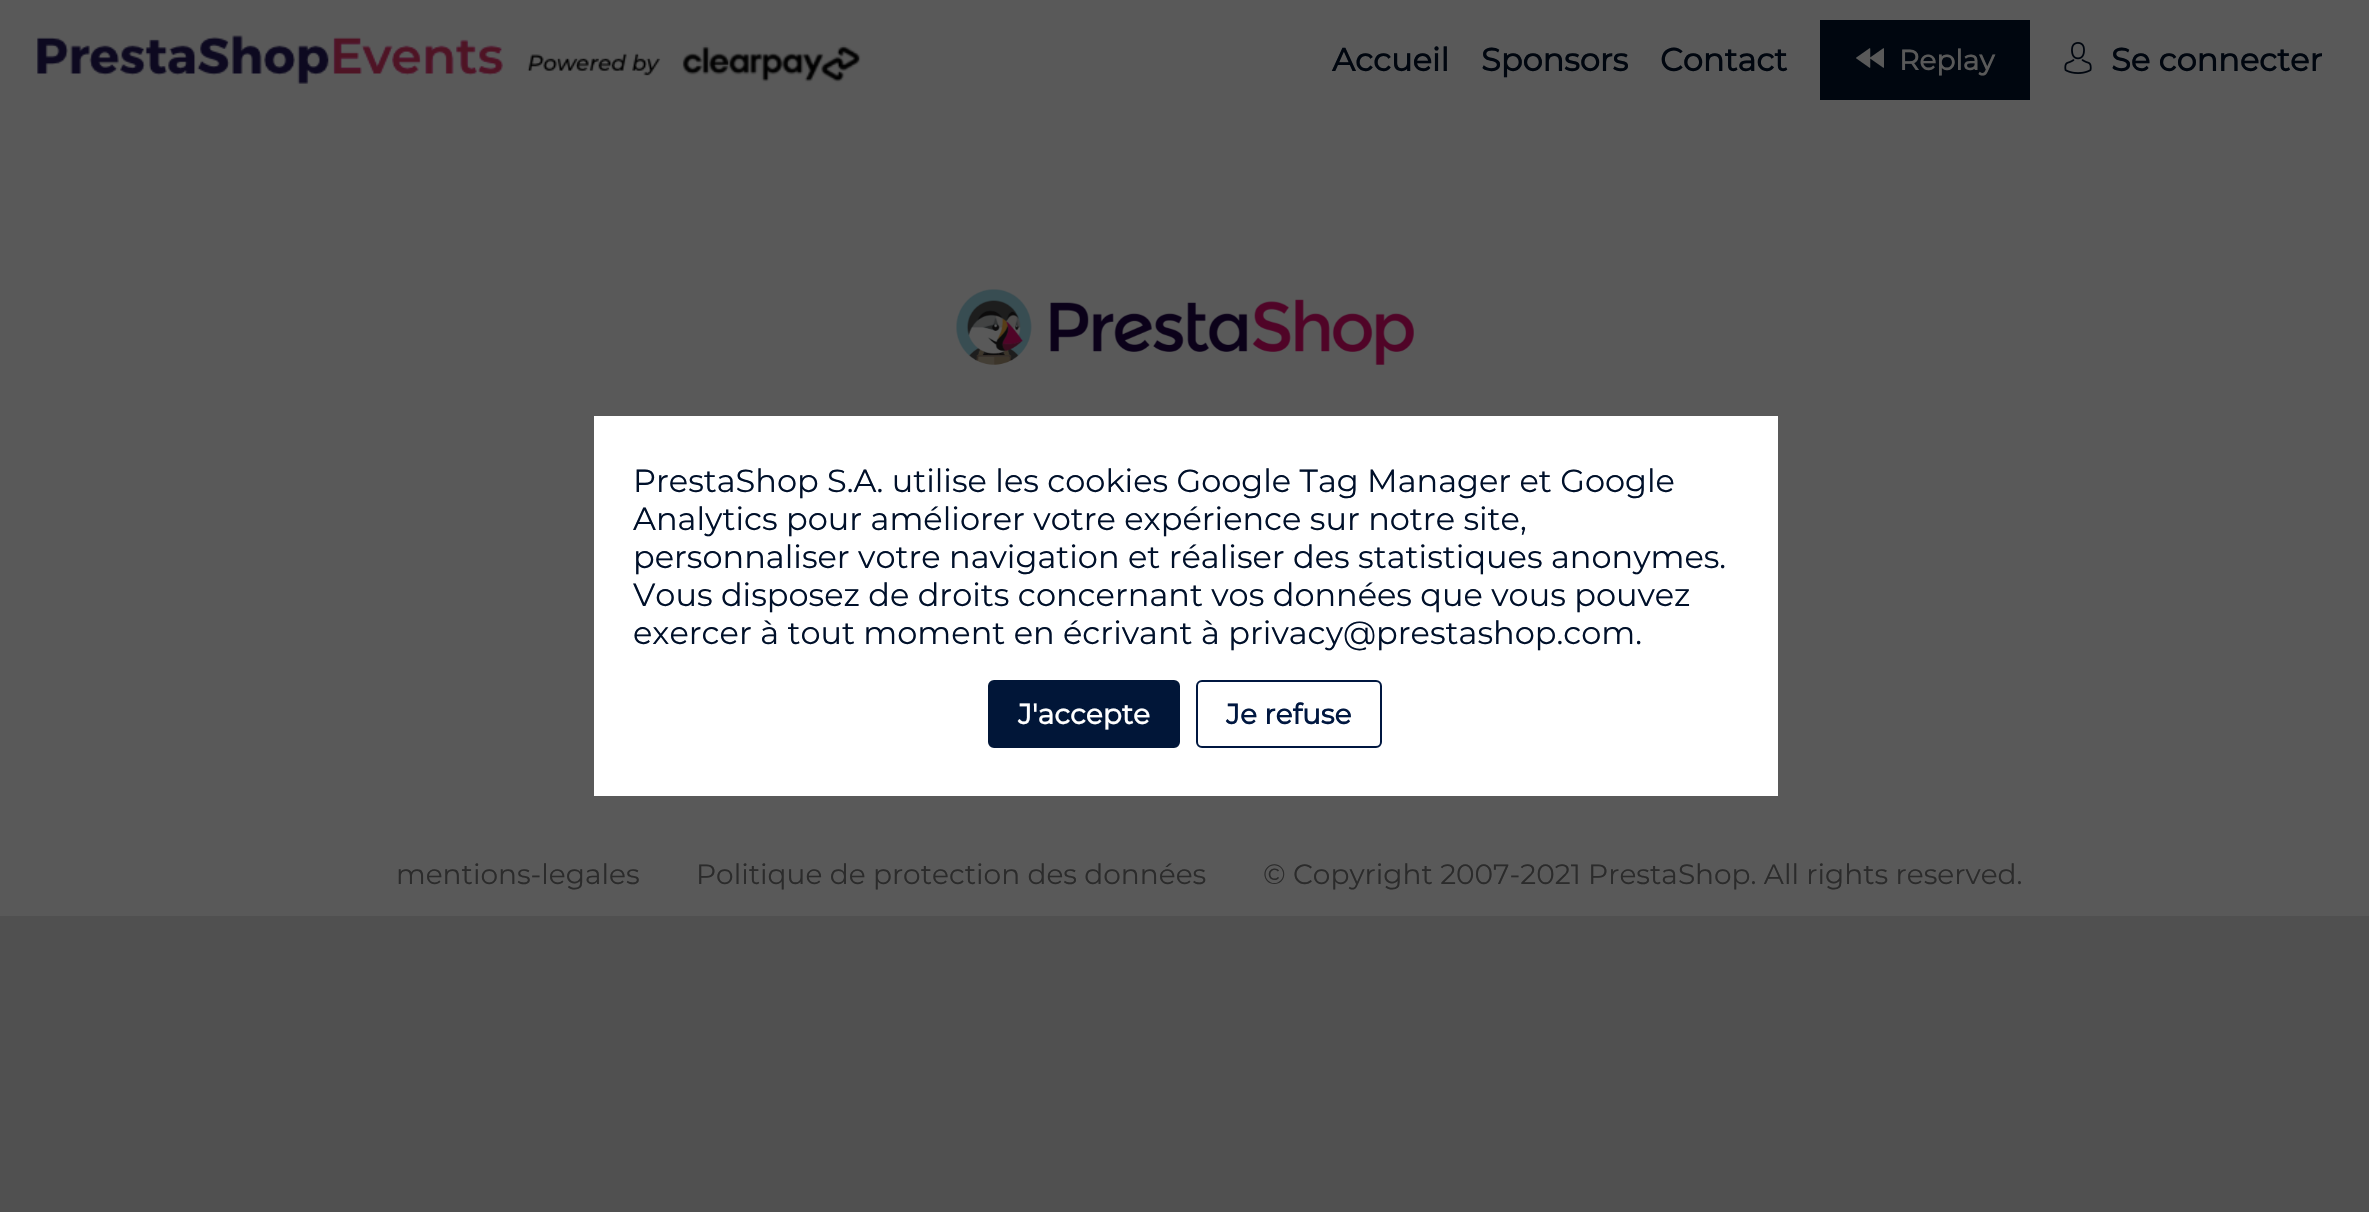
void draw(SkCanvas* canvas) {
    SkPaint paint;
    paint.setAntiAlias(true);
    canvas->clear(0xFF505050);
    paint.setColor(0xFF595959);
    canvas->drawRect(SkRect::MakeXYWH(0, 0, 2369, 916), paint);
    canvas->drawImageRect(SkImages::DeferredFromEncodedData(SkData::MakeFromFileName("img1.png")), SkRect::MakeXYWH(37, 35, 824, 49), SkSamplingOptions());
    SkFont font1(fontMgr->matchFamilyStyle("Montserrat", SkFontStyle::Bold()), 32);
    font1.setSubpixel(true);
    paint.setColor(0xFF00060F);
    canvas->drawString("Accueil", 1332, 71, font1, paint);
    canvas->drawString("Sponsors", 1481, 71, font1, paint);
    canvas->drawString("Contact", 1660, 71, font1, paint);
    canvas->drawRect(SkRect::MakeXYWH(1820, 20, 210, 80), paint);
    canvas->drawImageRect(SkImages::DeferredFromEncodedData(SkData::MakeFromFileName("img2.png")), SkRect::MakeXYWH(1856, 48, 28, 20), SkSamplingOptions());
    SkFont font2(fontMgr->matchFamilyStyle("Montserrat", SkFontStyle::Bold()), 28);
    font2.setSubpixel(true);
    paint.setColor(0xFF595959);
    canvas->drawString("Replay", 1899, 70, font2, paint);
    canvas->drawImageRect(SkImages::DeferredFromEncodedData(SkData::MakeFromFileName("img3.png")), SkRect::MakeXYWH(2064, 42, 28, 32), SkSamplingOptions());
    paint.setColor(0xFF00060F);
    canvas->drawString("Se connecter", 2111, 71, font1, paint);
    canvas->drawImageRect(SkImages::DeferredFromEncodedData(SkData::MakeFromFileName("img4.png")), SkRect::MakeXYWH(956, 289, 458, 76), SkSamplingOptions());
    SkFont font3(fontMgr->matchFamilyStyle("Montserrat", SkFontStyle(100, SkFontStyle::kNormal_Width, SkFontStyle::kUpright_Slant)), 28);
    font3.setSubpixel(true);
    paint.setColor(0xFF2B2B2B);
    canvas->drawString("mentions-legales", 396, 884, font3, paint);
    canvas->drawString("Politique de protection des données", 696, 884, font3, paint);
    canvas->drawString("© Copyright 2007-2021 PrestaShop. All rights reserved.", 1263, 884, font3, paint);
    paint.setColor(0xFFFFFFFF);
    canvas->drawRect(SkRect::MakeXYWH(594, 416, 1184, 380), paint);
    SkFont font4(fontMgr->matchFamilyStyle("Montserrat", SkFontStyle(100, SkFontStyle::kNormal_Width, SkFontStyle::kUpright_Slant)), 32);
    font4.setSubpixel(true);
    paint.setColor(0xFF00102A);
    canvas->drawString("PrestaShop S.A. utilise les cookies Google Tag Manager et Google", 633, 492, font4, paint);
    canvas->drawString("Analytics pour améliorer votre expérience sur notre site,", 633, 530, font4, paint);
    canvas->drawString("personnaliser votre navigation et réaliser des statistiques anonymes.", 633, 568, font4, paint);
    canvas->drawString("Vous disposez de droits concernant vos données que vous pouvez", 633, 606, font4, paint);
    canvas->drawString("exercer à tout moment en écrivant à privacy@prestashop.com.", 633, 644, font4, paint);
    paint.setColor(0xFF011638);
    canvas->drawRoundRect(SkRect::MakeXYWH(989, 681, 190, 66), 5, 5, paint);
    paint.setStyle(SkPaint::kStroke_Style);
    paint.setStrokeWidth(2);
    canvas->drawRoundRect(SkRect::MakeXYWH(989, 681, 190, 66), 5, 5, paint);
    paint.setStyle(SkPaint::kFill_Style);
    paint.setColor(0xFFFFFFFF);
    canvas->drawString("J'accepte", 1018, 724, font2, paint);
    paint.setStyle(SkPaint::kStroke_Style);
    paint.setColor(0xFF001740);
    canvas->drawRoundRect(SkRect::MakeXYWH(1197, 681, 184, 66), 5, 5, paint);
    paint.setStyle(SkPaint::kFill_Style);
    canvas->drawString("Je refuse", 1226, 724, font2, paint);
}
